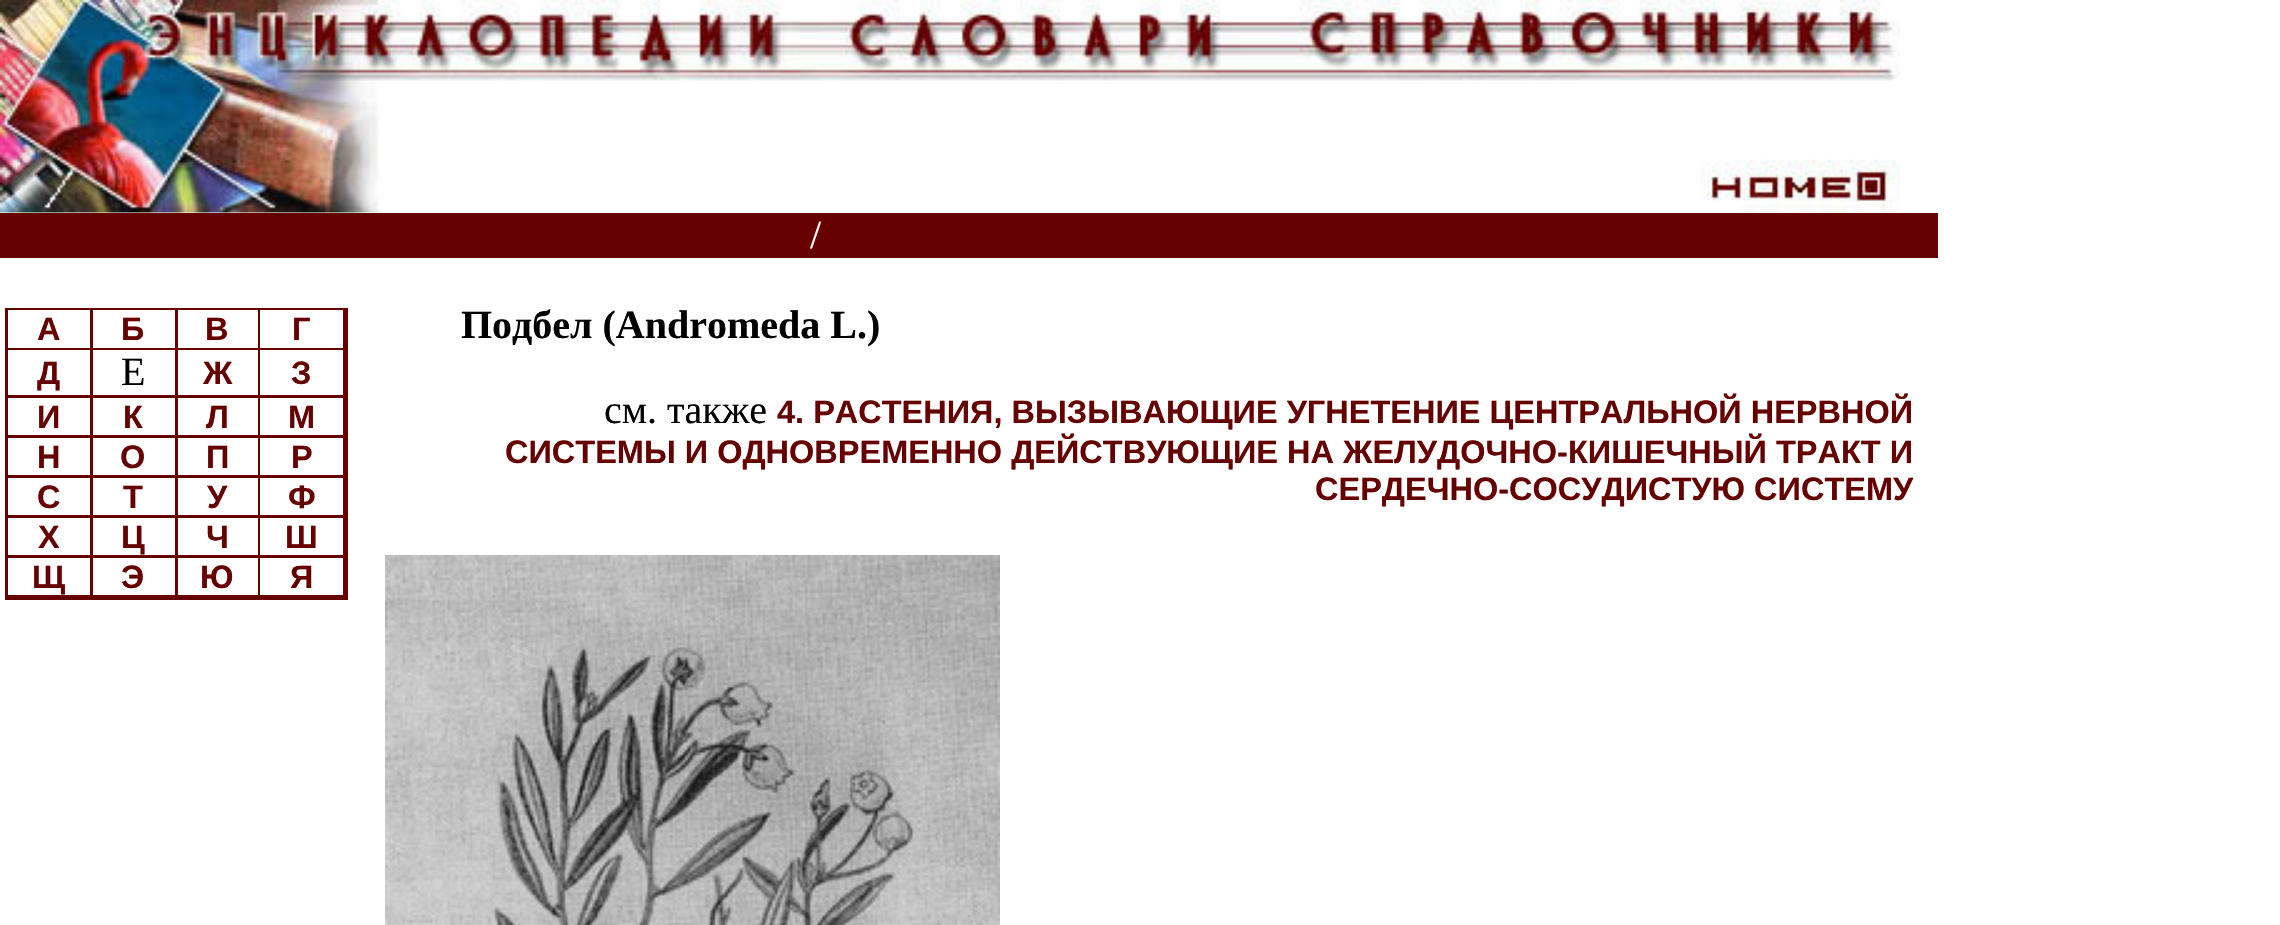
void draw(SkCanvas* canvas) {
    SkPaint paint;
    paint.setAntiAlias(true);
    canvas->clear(0xFFFFFFFF);
    canvas->drawImageRect(SkImages::DeferredFromEncodedData(SkData::MakeFromFileName("img1.png")), SkRect::MakeXYWH(0, 0, 1900, 213), SkSamplingOptions());
    paint.setColor(0xFF660000);
    canvas->drawRect(SkRect::MakeXYWH(0, 213, 1938, 45), paint);
    SkFont font1(fontMgr->matchFamilyStyle("Liberation Serif", SkFontStyle::Normal()), 40);
    font1.setSubpixel(true);
    paint.setColor(0xFFFFFFFF);
    canvas->drawString("/", 810, 248, font1, paint);
    paint.setColor(0xFF660000);
    canvas->drawRect(SkRect::MakeXYWH(5, 308, 343, 292), paint);
    paint.setColor(0xFFFFFFFF);
    canvas->drawRect(SkRect::MakeXYWH(8, 310, 82, 38), paint);
    SkFont font2(fontMgr->matchFamilyStyle("Liberation Sans", SkFontStyle::Bold()), 32.5f);
    font2.setSubpixel(true);
    paint.setColor(0xFF660000);
    canvas->drawString("А", 37, 340, font2, paint);
    paint.setColor(0xFFFFFFFF);
    canvas->drawRect(SkRect::MakeXYWH(93, 310, 82, 38), paint);
    paint.setColor(0xFF660000);
    canvas->drawString("Б", 121, 340, font2, paint);
    paint.setColor(0xFFFFFFFF);
    canvas->drawRect(SkRect::MakeXYWH(178, 310, 80, 38), paint);
    paint.setColor(0xFF660000);
    canvas->drawString("В", 205, 340, font2, paint);
    paint.setColor(0xFFFFFFFF);
    canvas->drawRect(SkRect::MakeXYWH(260, 310, 83, 38), paint);
    paint.setColor(0xFF660000);
    canvas->drawString("Г", 292, 340, font2, paint);
    paint.setColor(0xFFFFFFFF);
    canvas->drawRect(SkRect::MakeXYWH(8, 350, 82, 45), paint);
    paint.setColor(0xFF660000);
    canvas->drawString("Д", 37, 384, font2, paint);
    paint.setColor(0xFFFFFFFF);
    canvas->drawRect(SkRect::MakeXYWH(93, 350, 82, 45), paint);
    paint.setColor(0xFF000000);
    canvas->drawString("Е", 121, 385, font1, paint);
    paint.setColor(0xFFFFFFFF);
    canvas->drawRect(SkRect::MakeXYWH(178, 350, 80, 45), paint);
    paint.setColor(0xFF660000);
    canvas->drawString("Ж", 203, 384, font2, paint);
    paint.setColor(0xFFFFFFFF);
    canvas->drawRect(SkRect::MakeXYWH(260, 350, 83, 45), paint);
    paint.setColor(0xFF660000);
    canvas->drawString("З", 291, 384, font2, paint);
    paint.setColor(0xFFFFFFFF);
    canvas->drawRect(SkRect::MakeXYWH(8, 398, 82, 37), paint);
    paint.setColor(0xFF660000);
    canvas->drawString("И", 37, 428, font2, paint);
    paint.setColor(0xFFFFFFFF);
    canvas->drawRect(SkRect::MakeXYWH(93, 398, 82, 37), paint);
    paint.setColor(0xFF660000);
    canvas->drawString("К", 123, 428, font2, paint);
    paint.setColor(0xFFFFFFFF);
    canvas->drawRect(SkRect::MakeXYWH(178, 398, 80, 37), paint);
    paint.setColor(0xFF660000);
    canvas->drawString("Л", 206, 428, font2, paint);
    paint.setColor(0xFFFFFFFF);
    canvas->drawRect(SkRect::MakeXYWH(260, 398, 83, 37), paint);
    paint.setColor(0xFF660000);
    canvas->drawString("М", 288, 428, font2, paint);
    paint.setColor(0xFFFFFFFF);
    canvas->drawRect(SkRect::MakeXYWH(8, 438, 82, 37), paint);
    paint.setColor(0xFF660000);
    canvas->drawString("Н", 37, 468, font2, paint);
    paint.setColor(0xFFFFFFFF);
    canvas->drawRect(SkRect::MakeXYWH(93, 438, 82, 37), paint);
    paint.setColor(0xFF660000);
    canvas->drawString("О", 120, 468, font2, paint);
    paint.setColor(0xFFFFFFFF);
    canvas->drawRect(SkRect::MakeXYWH(178, 438, 80, 37), paint);
    paint.setColor(0xFF660000);
    canvas->drawString("П", 206, 468, font2, paint);
    paint.setColor(0xFFFFFFFF);
    canvas->drawRect(SkRect::MakeXYWH(260, 438, 83, 37), paint);
    paint.setColor(0xFF660000);
    canvas->drawString("Р", 291, 468, font2, paint);
    paint.setColor(0xFFFFFFFF);
    canvas->drawRect(SkRect::MakeXYWH(8, 478, 82, 37), paint);
    paint.setColor(0xFF660000);
    canvas->drawString("С", 37, 508, font2, paint);
    paint.setColor(0xFFFFFFFF);
    canvas->drawRect(SkRect::MakeXYWH(93, 478, 82, 37), paint);
    paint.setColor(0xFF660000);
    canvas->drawString("Т", 123, 508, font2, paint);
    paint.setColor(0xFFFFFFFF);
    canvas->drawRect(SkRect::MakeXYWH(178, 478, 80, 37), paint);
    paint.setColor(0xFF660000);
    canvas->drawString("У", 207, 508, font2, paint);
    paint.setColor(0xFFFFFFFF);
    canvas->drawRect(SkRect::MakeXYWH(260, 478, 83, 37), paint);
    paint.setColor(0xFF660000);
    canvas->drawString("Ф", 288, 508, font2, paint);
    paint.setColor(0xFFFFFFFF);
    canvas->drawRect(SkRect::MakeXYWH(8, 518, 82, 37), paint);
    paint.setColor(0xFF660000);
    canvas->drawString("Х", 38, 548, font2, paint);
    paint.setColor(0xFFFFFFFF);
    canvas->drawRect(SkRect::MakeXYWH(93, 518, 82, 37), paint);
    paint.setColor(0xFF660000);
    canvas->drawString("Ц", 121, 548, font2, paint);
    paint.setColor(0xFFFFFFFF);
    canvas->drawRect(SkRect::MakeXYWH(178, 518, 80, 37), paint);
    paint.setColor(0xFF660000);
    canvas->drawString("Ч", 206, 548, font2, paint);
    paint.setColor(0xFFFFFFFF);
    canvas->drawRect(SkRect::MakeXYWH(260, 518, 83, 37), paint);
    paint.setColor(0xFF660000);
    canvas->drawString("Ш", 285, 548, font2, paint);
    paint.setColor(0xFFFFFFFF);
    canvas->drawRect(SkRect::MakeXYWH(8, 558, 82, 37), paint);
    paint.setColor(0xFF660000);
    canvas->drawString("Щ", 32, 588, font2, paint);
    paint.setColor(0xFFFFFFFF);
    canvas->drawRect(SkRect::MakeXYWH(93, 558, 82, 37), paint);
    paint.setColor(0xFF660000);
    canvas->drawString("Э", 121, 588, font2, paint);
    paint.setColor(0xFFFFFFFF);
    canvas->drawRect(SkRect::MakeXYWH(178, 558, 80, 37), paint);
    paint.setColor(0xFF660000);
    canvas->drawString("Ю", 200, 588, font2, paint);
    paint.setColor(0xFFFFFFFF);
    canvas->drawRect(SkRect::MakeXYWH(260, 558, 83, 37), paint);
    paint.setColor(0xFF660000);
    canvas->drawString("Я", 290, 588, font2, paint);
    SkFont font3(fontMgr->matchFamilyStyle("Liberation Serif", SkFontStyle::Bold()), 40);
    font3.setSubpixel(true);
    paint.setColor(0xFF000000);
    canvas->drawString("Подбел (Andromeda L.)", 461, 338, font3, paint);
    canvas->drawString("см. также", 604, 423, font1, paint);
    paint.setColor(0xFF660000);
    canvas->drawString("4. РАСТЕНИЯ, ВЫЗЫВАЮЩИЕ УГНЕТЕНИЕ ЦЕНТРАЛЬНОЙ НЕРВНОЙ", 777, 423, font2, paint);
    canvas->drawString("СИСТЕМЫ И ОДНОВРЕМЕННО ДЕЙСТВУЮЩИЕ НА ЖЕЛУДОЧНО-КИШЕЧНЫЙ ТРАКТ И", 505, 463, font2, paint);
    canvas->drawString("СЕРДЕЧНО-СОСУДИСТУЮ СИСТЕМУ", 1315, 500, font2, paint);
    canvas->drawImageRect(SkImages::DeferredFromEncodedData(SkData::MakeFromFileName("img2.png")), SkRect::MakeXYWH(385, 555, 615, 370), SkSamplingOptions());
}
